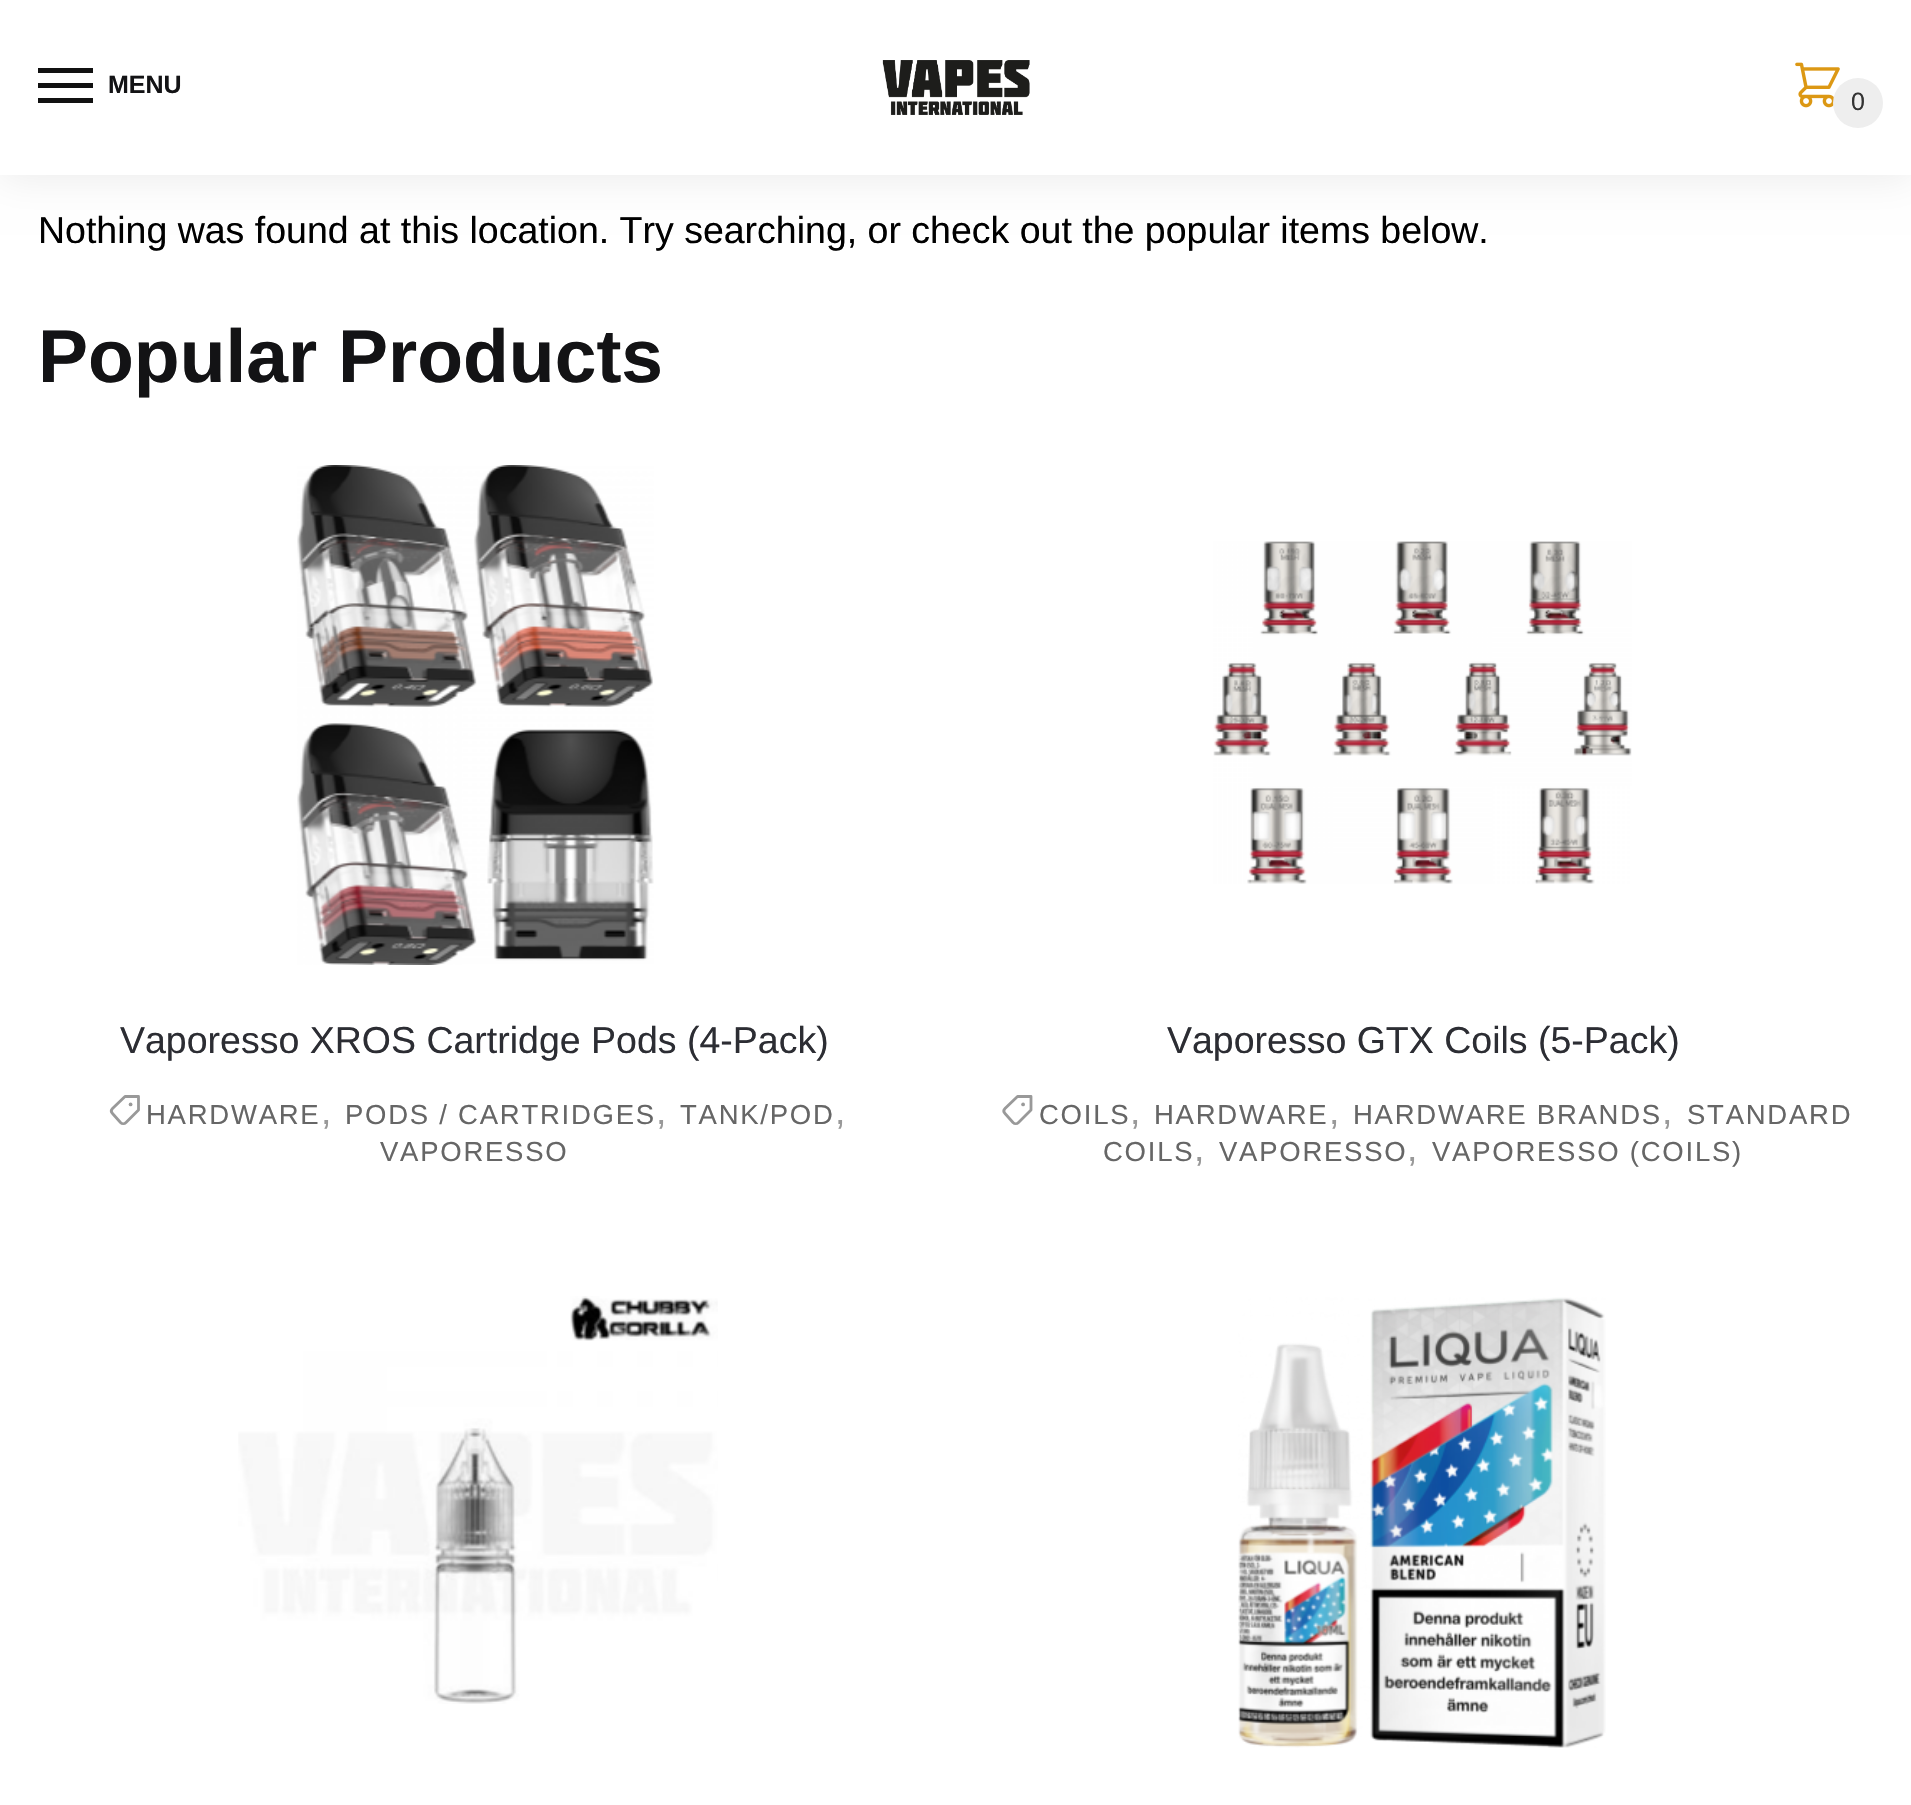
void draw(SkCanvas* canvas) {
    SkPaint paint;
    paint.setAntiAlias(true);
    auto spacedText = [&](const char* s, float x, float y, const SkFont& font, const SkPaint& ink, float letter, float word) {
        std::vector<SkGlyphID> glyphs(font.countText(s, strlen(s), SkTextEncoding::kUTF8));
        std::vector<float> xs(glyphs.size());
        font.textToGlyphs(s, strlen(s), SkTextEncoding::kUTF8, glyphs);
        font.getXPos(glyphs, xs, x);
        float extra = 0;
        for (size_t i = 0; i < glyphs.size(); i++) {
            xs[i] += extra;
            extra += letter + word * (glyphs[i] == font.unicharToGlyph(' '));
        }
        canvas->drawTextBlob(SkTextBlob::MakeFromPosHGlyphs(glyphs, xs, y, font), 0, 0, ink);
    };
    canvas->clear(0xFFFFFFFF);
    paint.setColor(0x14000000);
    paint.setMaskFilter(SkMaskFilter::MakeBlur(kNormal_SkBlurStyle, 19));
    canvas->drawRect(SkRect::MakeXYWH(0, 3, 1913, 175), paint);
    paint.setMaskFilter(nullptr);
    paint.setColor(0xFFFFFFFF);
    canvas->drawRect(SkRect::MakeXYWH(0, 0, 1911, 175), paint);
    paint.setColor(0xFF111111);
    canvas->drawRect(SkRect::MakeXYWH(38, 68, 55, 5), paint);
    canvas->drawRect(SkRect::MakeXYWH(38, 83, 55, 5), paint);
    SkFont font1(fontMgr->matchFamilyStyle("Liberation Sans", SkFontStyle::Bold()), 25);
    font1.setSubpixel(true);
    paint.setColor(0xFF131315);
    canvas->drawString("MENU", 108, 93, font1, paint);
    paint.setColor(0xFF111111);
    canvas->drawRect(SkRect::MakeXYWH(38, 98, 55, 5), paint);
    canvas->drawImageRect(SkImages::DeferredFromEncodedData(SkData::MakeFromFileName("img1.png")), SkRect::MakeXYWH(882, 60, 148, 55), SkSamplingOptions());
    canvas->drawImageRect(SkImages::DeferredFromEncodedData(SkData::MakeFromFileName("img2.png")), SkRect::MakeXYWH(1795, 62, 45, 46), SkSamplingOptions());
    paint.setColor(0xFFEEEEEE);
    canvas->drawCircle(1858, 103, 25, paint);
    SkFont font2(fontMgr->matchFamilyStyle("Liberation Sans", SkFontStyle::Normal()), 25);
    font2.setSubpixel(true);
    paint.setColor(0xFF333333);
    canvas->drawString("0", 1851, 110, font2, paint);
    SkFont font3(fontMgr->matchFamilyStyle("Liberation Sans", SkFontStyle::Normal()), 37.5f);
    font3.setSubpixel(true);
    paint.setColor(0xFF000000);
    canvas->drawString("Nothing was found at this location. Try searching, or check out the popular items below.", 38, 243, font3, paint);
    SkFont font4(fontMgr->matchFamilyStyle("Liberation Sans", SkFontStyle::Bold()), 75);
    font4.setSubpixel(true);
    paint.setColor(0xFF131315);
    canvas->drawString("Popular Products", 38, 382, font4, paint);
    canvas->drawImageRect(SkImages::DeferredFromEncodedData(SkData::MakeFromFileName("img3.png")), SkRect::MakeXYWH(297, 465, 357, 500), SkSamplingOptions());
    paint.setColor(0xFF2C2D33);
    canvas->drawString("Vaporesso XROS Cartridge Pods (4-Pack)", 120, 1053, font3, paint);
    paint.setColor(0xFF999999);
    canvas->drawCircle(130.6f, 1104.4f, 1.9f, paint);
    paint.setStyle(SkPaint::kStroke_Style);
    paint.setStrokeWidth(2.8f);
    paint.setStrokeCap(SkPaint::kRound_Cap);
    paint.setStrokeJoin(SkPaint::kRound_Join);
    canvas->drawPath(SkPathBuilder().moveTo(125, 1096.5f).lineTo(138.5f, 1096.5f).lineTo(138.5f, 1110).lineTo(126, 1122.5f).cubicTo(124.5f, 1124, 122, 1124, 120.5f, 1122.5f).lineTo(112.5f, 1113.5f).cubicTo(111, 1112, 111, 1110, 112.5f, 1108.5f).close().detach(), paint);
    SkFont font5(fontMgr->matchFamilyStyle("Liberation Sans", SkFontStyle::Normal()), 27.5f);
    font5.setSubpixel(true);
    paint.setStyle(SkPaint::kFill_Style);
    paint.setColor(0xFF666666);
    spacedText("HARDWARE", 146, 1124, font5, paint, 1.75f, 0);
    paint.setColor(0xFF999999);
    spacedText(",", 321, 1124, font3, paint, 1.75f, 0);
    paint.setColor(0xFF666666);
    spacedText("PODS / CARTRIDGES", 345, 1124, font5, paint, 1.75f, 0);
    paint.setColor(0xFF999999);
    spacedText(",", 656, 1124, font3, paint, 1.75f, 0);
    paint.setColor(0xFF666666);
    spacedText("TANK/POD", 680, 1124, font5, paint, 1.75f, 0);
    paint.setColor(0xFF999999);
    spacedText(",", 835, 1124, font3, paint, 1.75f, 0);
    paint.setColor(0xFF666666);
    spacedText("VAPORESSO", 380, 1161, font5, paint, 1.75f, 0);
    canvas->drawImageRect(SkImages::DeferredFromEncodedData(SkData::MakeFromFileName("img4.png")), SkRect::MakeXYWH(1213, 541, 419, 343), SkSamplingOptions());
    paint.setColor(0xFF2C2D33);
    canvas->drawString("Vaporesso GTX Coils (5-Pack)", 1167, 1053, font3, paint);
    paint.setColor(0xFF999999);
    canvas->drawCircle(1023.1f, 1104.4f, 1.9f, paint);
    paint.setStyle(SkPaint::kStroke_Style);
    canvas->drawPath(SkPathBuilder().moveTo(1017.5f, 1096.5f).lineTo(1031, 1096.5f).lineTo(1031, 1110).lineTo(1018.5f, 1122.5f).cubicTo(1017, 1124, 1014.5f, 1124, 1013, 1122.5f).lineTo(1005, 1113.5f).cubicTo(1003.5f, 1112, 1003.5f, 1110, 1005, 1108.5f).close().detach(), paint);
    paint.setStyle(SkPaint::kFill_Style);
    paint.setColor(0xFF666666);
    spacedText("COILS", 1039, 1124, font5, paint, 1.75f, 0);
    paint.setColor(0xFF999999);
    spacedText(",", 1130, 1124, font3, paint, 1.75f, 0);
    paint.setColor(0xFF666666);
    spacedText("HARDWARE", 1154, 1124, font5, paint, 1.75f, 0);
    paint.setColor(0xFF999999);
    spacedText(",", 1329, 1124, font3, paint, 1.75f, 0);
    paint.setColor(0xFF666666);
    spacedText("HARDWARE BRANDS", 1353, 1124, font5, paint, 1.75f, 0);
    paint.setColor(0xFF999999);
    spacedText(",", 1662, 1124, font3, paint, 1.75f, 0);
    paint.setColor(0xFF666666);
    spacedText("STANDARD", 1687, 1124, font5, paint, 1.75f, 0);
    spacedText("COILS", 1103, 1161, font5, paint, 1.75f, 0);
    paint.setColor(0xFF999999);
    spacedText(",", 1194, 1161, font3, paint, 1.75f, 0);
    paint.setColor(0xFF666666);
    spacedText("VAPORESSO", 1219, 1161, font5, paint, 1.75f, 0);
    paint.setColor(0xFF999999);
    spacedText(",", 1407, 1161, font3, paint, 1.75f, 0);
    paint.setColor(0xFF666666);
    spacedText("VAPORESSO (COILS)", 1432, 1161, font5, paint, 1.75f, 0);
    canvas->drawImageRect(SkImages::DeferredFromEncodedData(SkData::MakeFromFileName("img5.png")), SkRect::MakeXYWH(238, 1296, 480, 408), SkSamplingOptions());
    canvas->drawImageRect(SkImages::DeferredFromEncodedData(SkData::MakeFromFileName("img6.png")), SkRect::MakeXYWH(1238, 1297, 368, 451), SkSamplingOptions());
}
